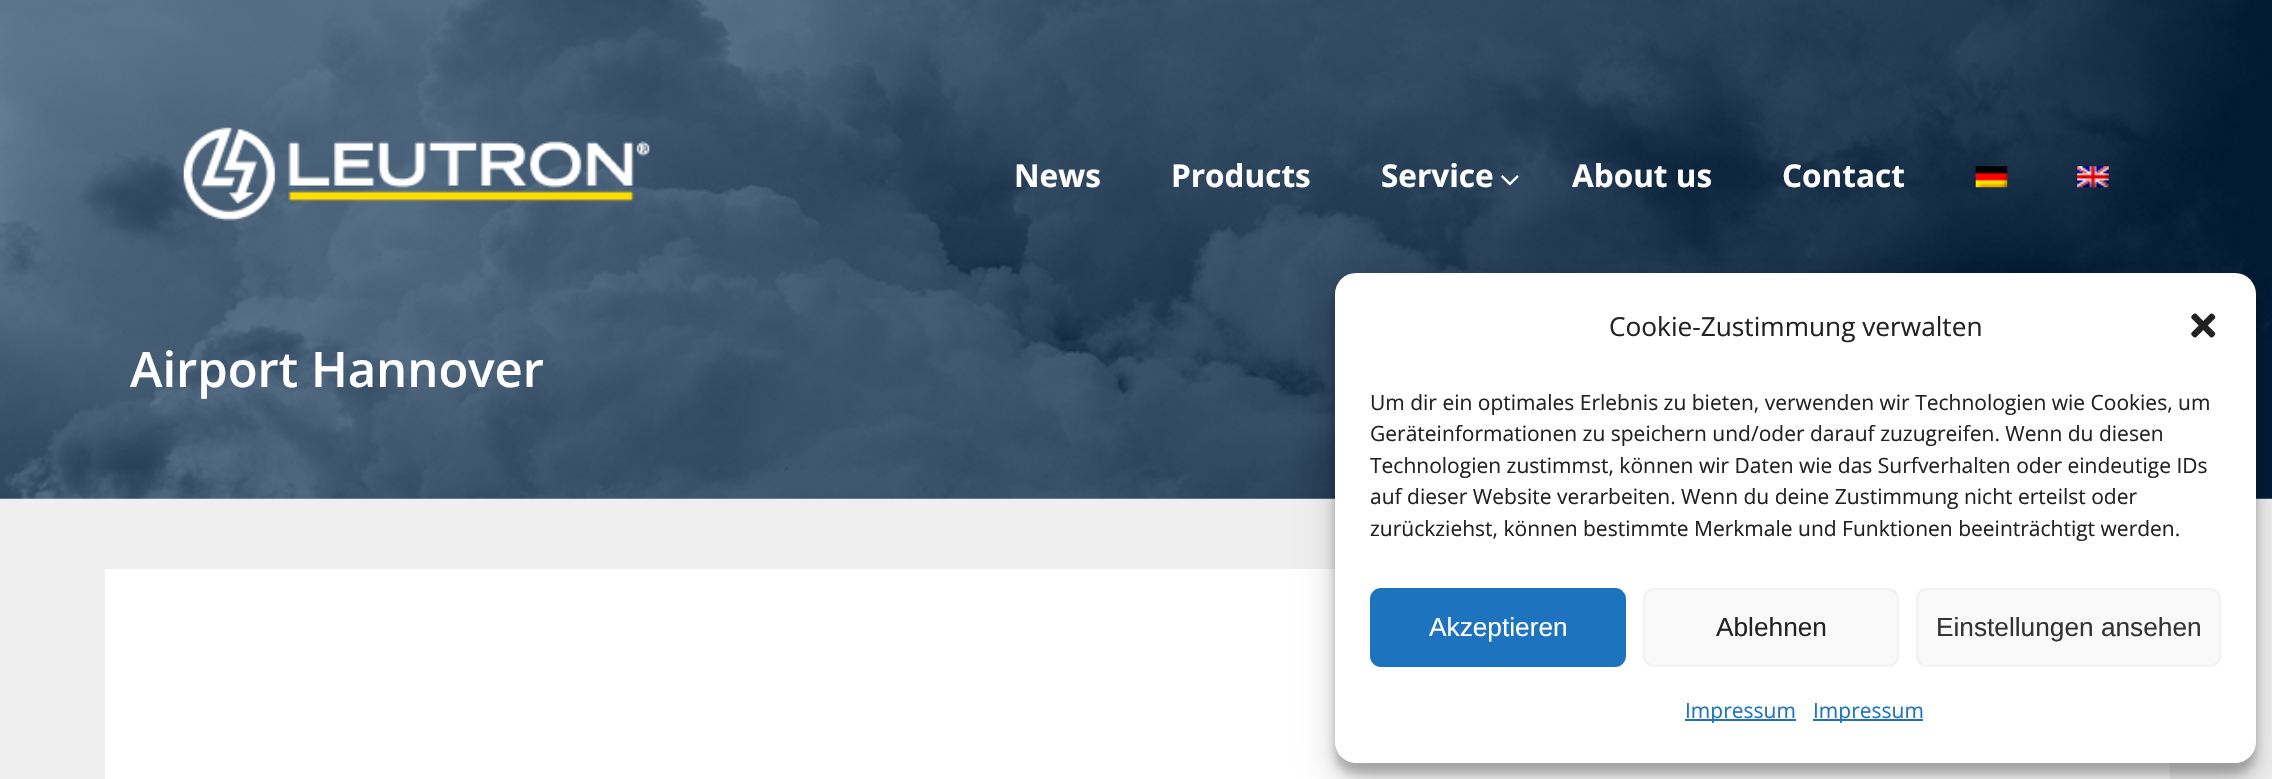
void draw(SkCanvas* canvas) {
    SkPaint paint;
    paint.setAntiAlias(true);
    canvas->clear(0xFFEFEFEF);
    canvas->drawImageRect(SkImages::DeferredFromEncodedData(SkData::MakeFromFileName("img5.png")), SkRect::MakeXYWH(0, 0, 2272, 499), SkSamplingOptions());
    canvas->drawImageRect(SkImages::DeferredFromEncodedData(SkData::MakeFromFileName("img1.png")), SkRect::MakeXYWH(183, 127, 467, 94), SkSamplingOptions());
    SkFont font1(fontMgr->matchFamilyStyle("Open Sans", SkFontStyle::Bold()), 31.5f);
    font1.setSubpixel(true);
    paint.setColor(0xFFFFFFFF);
    canvas->drawString("News", 1014, 187, font1, paint);
    canvas->drawString("Products", 1171, 187, font1, paint);
    canvas->drawString("Service", 1381, 187, font1, paint);
    canvas->drawImageRect(SkImages::DeferredFromEncodedData(SkData::MakeFromFileName("img2.png")), SkRect::MakeXYWH(1501, 175, 18, 11), SkSamplingOptions());
    canvas->drawString("About us", 1572, 187, font1, paint);
    canvas->drawString("Contact", 1782, 187, font1, paint);
    canvas->drawImageRect(SkImages::DeferredFromEncodedData(SkData::MakeFromFileName("img3.png")), SkRect::MakeXYWH(1975, 166, 33, 22), SkSamplingOptions());
    canvas->drawImageRect(SkImages::DeferredFromEncodedData(SkData::MakeFromFileName("img4.png")), SkRect::MakeXYWH(2077, 166, 32, 22), SkSamplingOptions());
    SkFont font2(fontMgr->matchFamilyStyle("Open Sans", SkFontStyle(600, SkFontStyle::kNormal_Width, SkFontStyle::kUpright_Slant)), 49);
    font2.setSubpixel(true);
    canvas->drawString("Airport Hannover", 130, 387, font2, paint);
    canvas->drawRect(SkRect::MakeXYWH(105, 569, 1230, 166), paint);
    canvas->drawRect(SkRect::MakeXYWH(105, 735, 2065, 44), paint);
    paint.setColor(0x3B000000);
    paint.setMaskFilter(SkMaskFilter::MakeBlur(kNormal_SkBlurStyle, 5));
    canvas->drawRoundRect(SkRect::MakeXYWH(1335, 284, 921, 490), 21, 21, paint);
    paint.setMaskFilter(nullptr);
    paint.setColor(0x30000000);
    paint.setMaskFilter(SkMaskFilter::MakeBlur(kNormal_SkBlurStyle, 17.5f));
    canvas->drawRoundRect(SkRect::MakeXYWH(1335, 291, 921, 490), 21, 21, paint);
    paint.setMaskFilter(nullptr);
    paint.setColor(0xFFFFFFFF);
    canvas->drawRoundRect(SkRect::MakeXYWH(1335, 273, 921, 490), 21, 21, paint);
    SkFont font3(fontMgr->matchFamilyStyle("Open Sans", SkFontStyle::Normal()), 26.25f);
    font3.setSubpixel(true);
    paint.setColor(0xFF222222);
    canvas->drawString("Cookie-Zustimmung verwalten", 1609, 336, font3, paint);
    canvas->drawImageRect(SkImages::DeferredFromEncodedData(SkData::MakeFromFileName("img6.png")), SkRect::MakeXYWH(2191, 313, 25, 25), SkSamplingOptions());
    SkFont font4(fontMgr->matchFamilyStyle("Open Sans", SkFontStyle::Normal()), 21);
    font4.setSubpixel(true);
    canvas->drawString("Um dir ein optimales Erlebnis zu bieten, verwenden wir Technologien wie Cookies, um", 1370, 410, font4, paint);
    canvas->drawString("Geräteinformationen zu speichern und/oder darauf zuzugreifen. Wenn du diesen", 1370, 441, font4, paint);
    canvas->drawString("Technologien zustimmst, können wir Daten wie das Surfverhalten oder eindeutige IDs", 1370, 473, font4, paint);
    canvas->drawString("auf dieser Website verarbeiten. Wenn du deine Zustimmung nicht erteilst oder", 1370, 504, font4, paint);
    canvas->drawString("zurückziehst, können bestimmte Merkmale und Funktionen beeinträchtigt werden.", 1370, 536, font4, paint);
    paint.setColor(0xFF1E73BE);
    canvas->drawRoundRect(SkRect::MakeXYWH(1371, 589, 254, 77), 10, 10, paint);
    paint.setStyle(SkPaint::kStroke_Style);
    paint.setStrokeWidth(2);
    canvas->drawRoundRect(SkRect::MakeXYWH(1371, 589, 254, 77), 10, 10, paint);
    SkFont font5(fontMgr->matchFamilyStyle("Liberation Sans", SkFontStyle::Normal()), 26.25f);
    font5.setSubpixel(true);
    paint.setStyle(SkPaint::kFill_Style);
    paint.setColor(0xFFFFFFFF);
    canvas->drawString("Akzeptieren", 1429, 636, font5, paint);
    paint.setColor(0xFFF9F9F9);
    canvas->drawRoundRect(SkRect::MakeXYWH(1644, 589, 254, 77), 10, 10, paint);
    paint.setStyle(SkPaint::kStroke_Style);
    paint.setColor(0xFFF2F2F2);
    canvas->drawRoundRect(SkRect::MakeXYWH(1644, 589, 254, 77), 10, 10, paint);
    paint.setStyle(SkPaint::kFill_Style);
    paint.setColor(0xFF222222);
    canvas->drawString("Ablehnen", 1716, 636, font5, paint);
    paint.setColor(0xFFF9F9F9);
    canvas->drawRoundRect(SkRect::MakeXYWH(1917, 589, 303, 77), 10, 10, paint);
    paint.setStyle(SkPaint::kStroke_Style);
    paint.setColor(0xFFF2F2F2);
    canvas->drawRoundRect(SkRect::MakeXYWH(1917, 589, 303, 77), 10, 10, paint);
    paint.setStyle(SkPaint::kFill_Style);
    paint.setColor(0xFF333333);
    canvas->drawString("Einstellungen ansehen", 1936, 636, font5, paint);
    paint.setColor(0xFF1E73BE);
    canvas->drawRect(SkRect::MakeXYWH(1685, 719, 111, 2), paint);
    canvas->drawString("Impressum", 1685, 718, font4, paint);
    canvas->drawRect(SkRect::MakeXYWH(1813, 719, 110, 2), paint);
    canvas->drawString("Impressum", 1813, 718, font4, paint);
}
